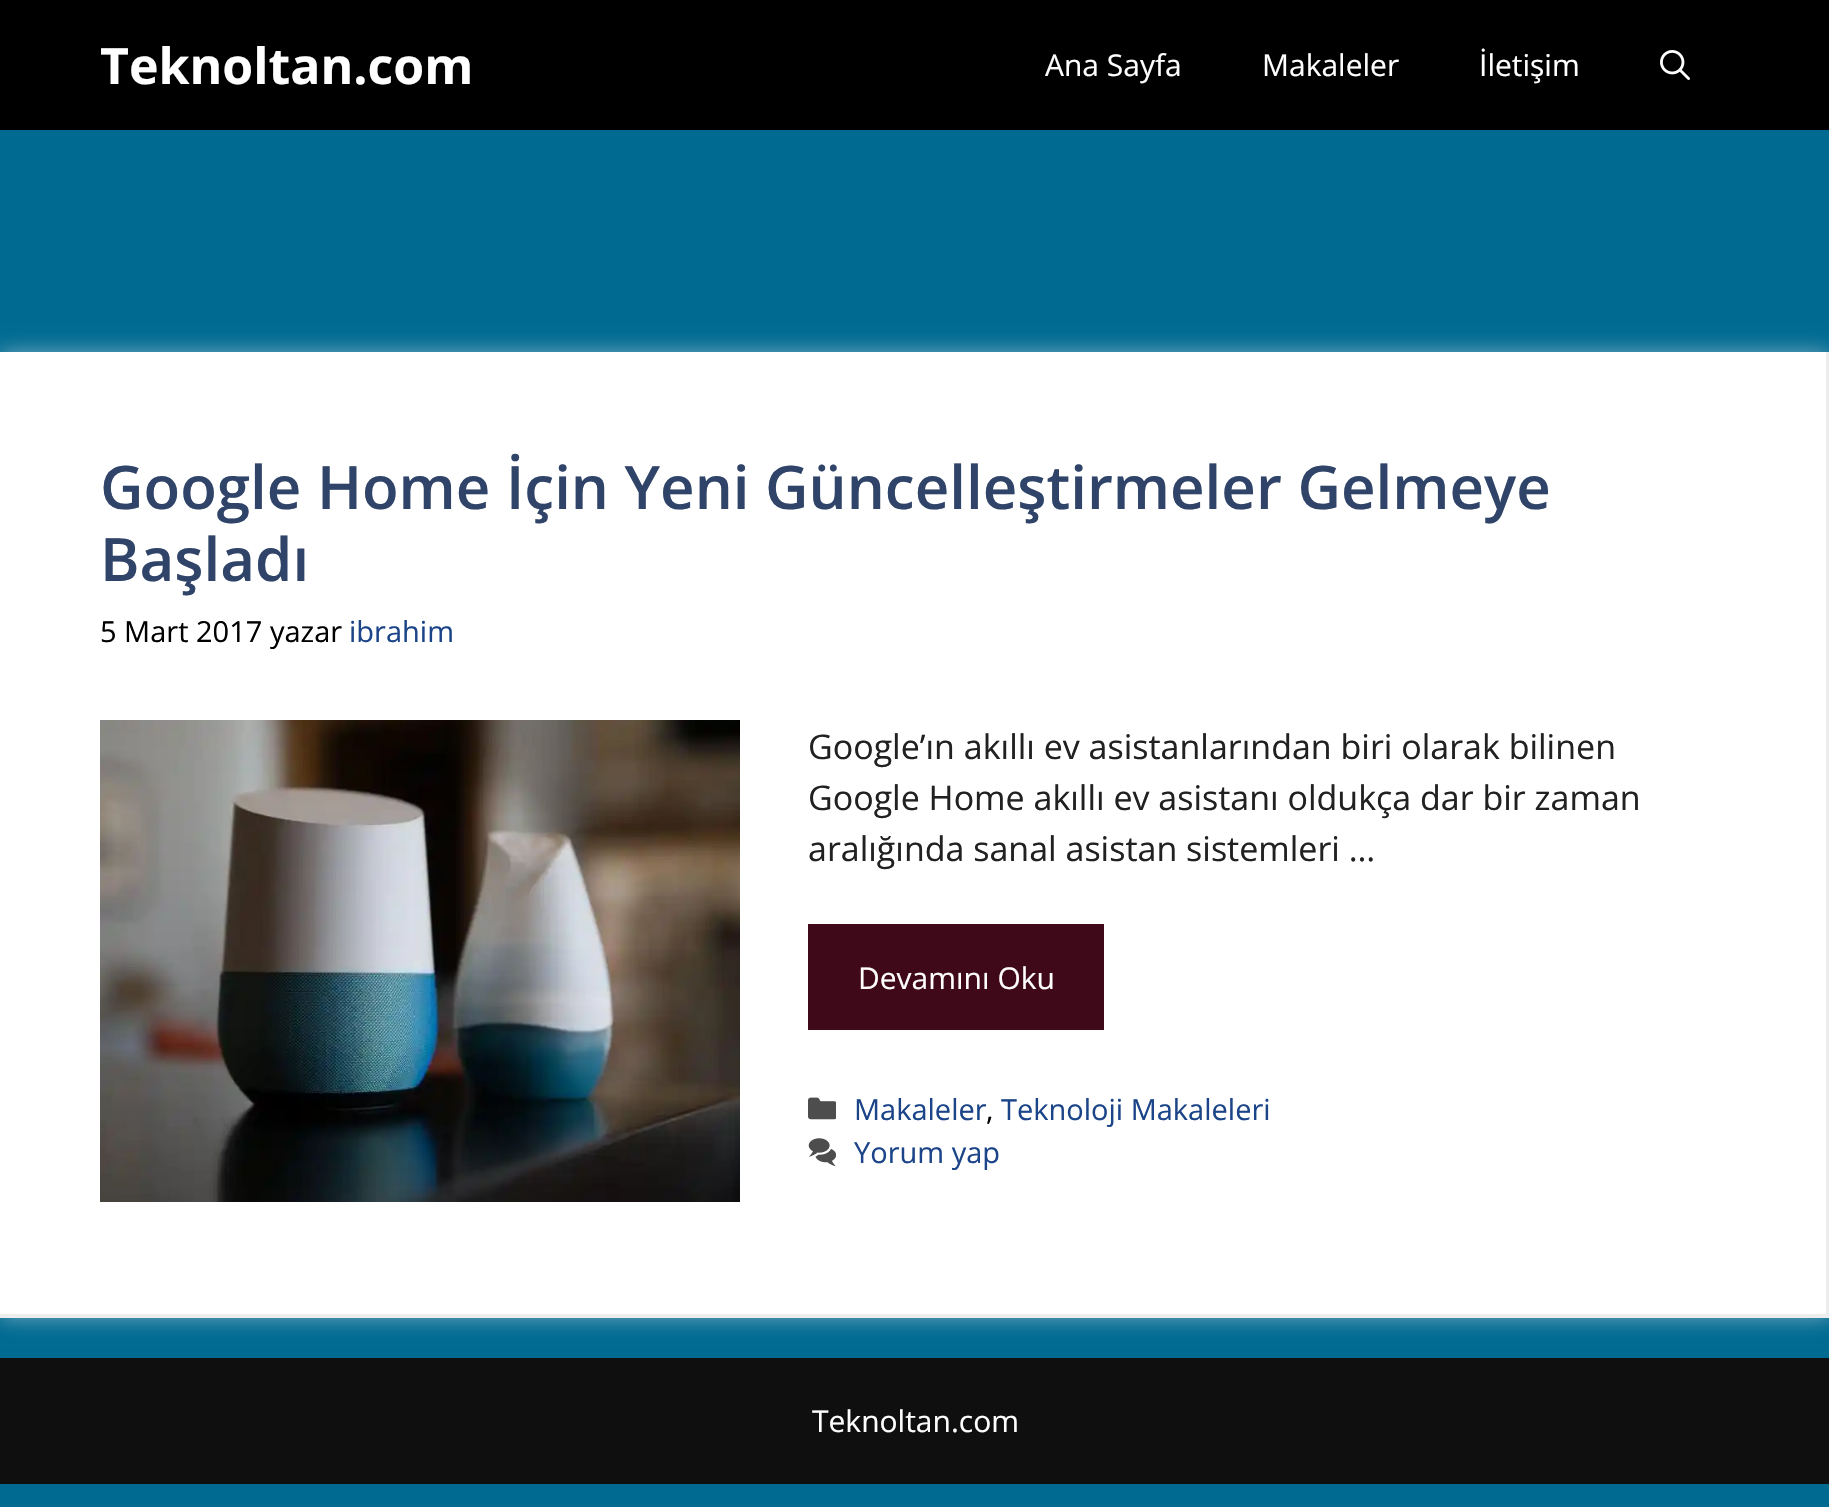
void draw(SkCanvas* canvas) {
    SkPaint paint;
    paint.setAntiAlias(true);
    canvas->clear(0xFF006A91);
    paint.setColor(0xFF000000);
    canvas->drawRect(SkRect::MakeXYWH(0, 0, 1829, 130), paint);
    SkFont font1(fontMgr->matchFamilyStyle("Open Sans", SkFontStyle::Bold()), 50);
    font1.setSubpixel(true);
    paint.setColor(0xFFFFFFFF);
    canvas->drawString("Teknoltan.com", 100, 84, font1, paint);
    SkFont font2(fontMgr->matchFamilyStyle("Open Sans", SkFontStyle::Normal()), 30);
    font2.setSubpixel(true);
    canvas->drawString("Ana Sayfa", 1045, 76, font2, paint);
    canvas->drawString("Makaleler", 1262, 76, font2, paint);
    canvas->drawString("İletişim", 1479, 76, font2, paint);
    canvas->drawImageRect(SkImages::DeferredFromEncodedData(SkData::MakeFromFileName("img1.png")), SkRect::MakeXYWH(1660, 50, 30, 30), SkSamplingOptions());
    paint.setColor(0x80E8EAED);
    paint.setMaskFilter(SkMaskFilter::MakeBlur(kNormal_SkBlurStyle, 10));
    canvas->drawRect(SkRect::MakeXYWH(0, 352, 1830, 966), paint);
    paint.setMaskFilter(nullptr);
    paint.setColor(0xFFFFFFFF);
    canvas->drawRect(SkRect::MakeXYWH(0, 352, 1829, 966), paint);
    paint.setColor(0xFFEDEDED);
    canvas->drawPath(SkPathBuilder().moveTo(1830, 352).lineTo(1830, 1318).lineTo(1826, 1314).lineTo(1826, 352).close().detach(), paint);
    paint.setColor(0x12000000);
    canvas->drawPath(SkPathBuilder().moveTo(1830, 1318).lineTo(0, 1318).lineTo(0, 1314).lineTo(1826, 1314).close().detach(), paint);
    SkFont font3(fontMgr->matchFamilyStyle("Open Sans", SkFontStyle(600, SkFontStyle::kNormal_Width, SkFontStyle::kUpright_Slant)), 60);
    font3.setSubpixel(true);
    paint.setColor(0xFF2F4468);
    canvas->drawString("Google Home İçin Yeni Güncelleştirmeler Gelmeye", 100, 509, font3, paint);
    canvas->drawString("Başladı", 100, 581, font3, paint);
    SkFont font4(fontMgr->matchFamilyStyle("Open Sans", SkFontStyle::Normal()), 29);
    font4.setSubpixel(true);
    paint.setColor(0xFF000000);
    canvas->drawString("5 Mart 2017 yazar", 100, 642, font4, paint);
    paint.setColor(0xFF1B4588);
    canvas->drawString("ibrahim", 349, 642, font4, paint);
    canvas->drawImageRect(SkImages::DeferredFromEncodedData(SkData::MakeFromFileName("img2.png")), SkRect::MakeXYWH(100, 720, 640, 482), SkSamplingOptions());
    SkFont font5(fontMgr->matchFamilyStyle("Open Sans", SkFontStyle::Normal()), 34);
    font5.setSubpixel(true);
    paint.setColor(0xFF212121);
    canvas->drawString("Google’ın akıllı ev asistanlarından biri olarak bilinen", 808, 759, font5, paint);
    canvas->drawString("Google Home akıllı ev asistanı oldukça dar bir zaman", 808, 810, font5, paint);
    canvas->drawString("aralığında sanal asistan sistemleri …", 808, 861, font5, paint);
    paint.setColor(0xFF3F0919);
    canvas->drawRect(SkRect::MakeXYWH(808, 924, 296, 106), paint);
    paint.setColor(0xFFFFFFFF);
    canvas->drawString("Devamını Oku", 858, 989, font2, paint);
    canvas->drawImageRect(SkImages::DeferredFromEncodedData(SkData::MakeFromFileName("img3.png")), SkRect::MakeXYWH(808, 1097, 28, 23), SkSamplingOptions());
    paint.setColor(0xFF1B4588);
    canvas->drawString("Makaleler", 854, 1120, font4, paint);
    paint.setColor(0xFF000000);
    canvas->drawString(",", 986, 1120, font4, paint);
    paint.setColor(0xFF1B4588);
    canvas->drawString("Teknoloji Makaleleri", 1001, 1120, font4, paint);
    canvas->drawImageRect(SkImages::DeferredFromEncodedData(SkData::MakeFromFileName("img4.png")), SkRect::MakeXYWH(808, 1138, 28, 28), SkSamplingOptions());
    canvas->drawString("Yorum yap", 854, 1163, font4, paint);
    paint.setColor(0xFF100F0F);
    canvas->drawRect(SkRect::MakeXYWH(0, 1358, 1829, 126), paint);
    paint.setColor(0xFFFFFFFF);
    canvas->drawString("Teknoltan.com", 812, 1432, font2, paint);
}
